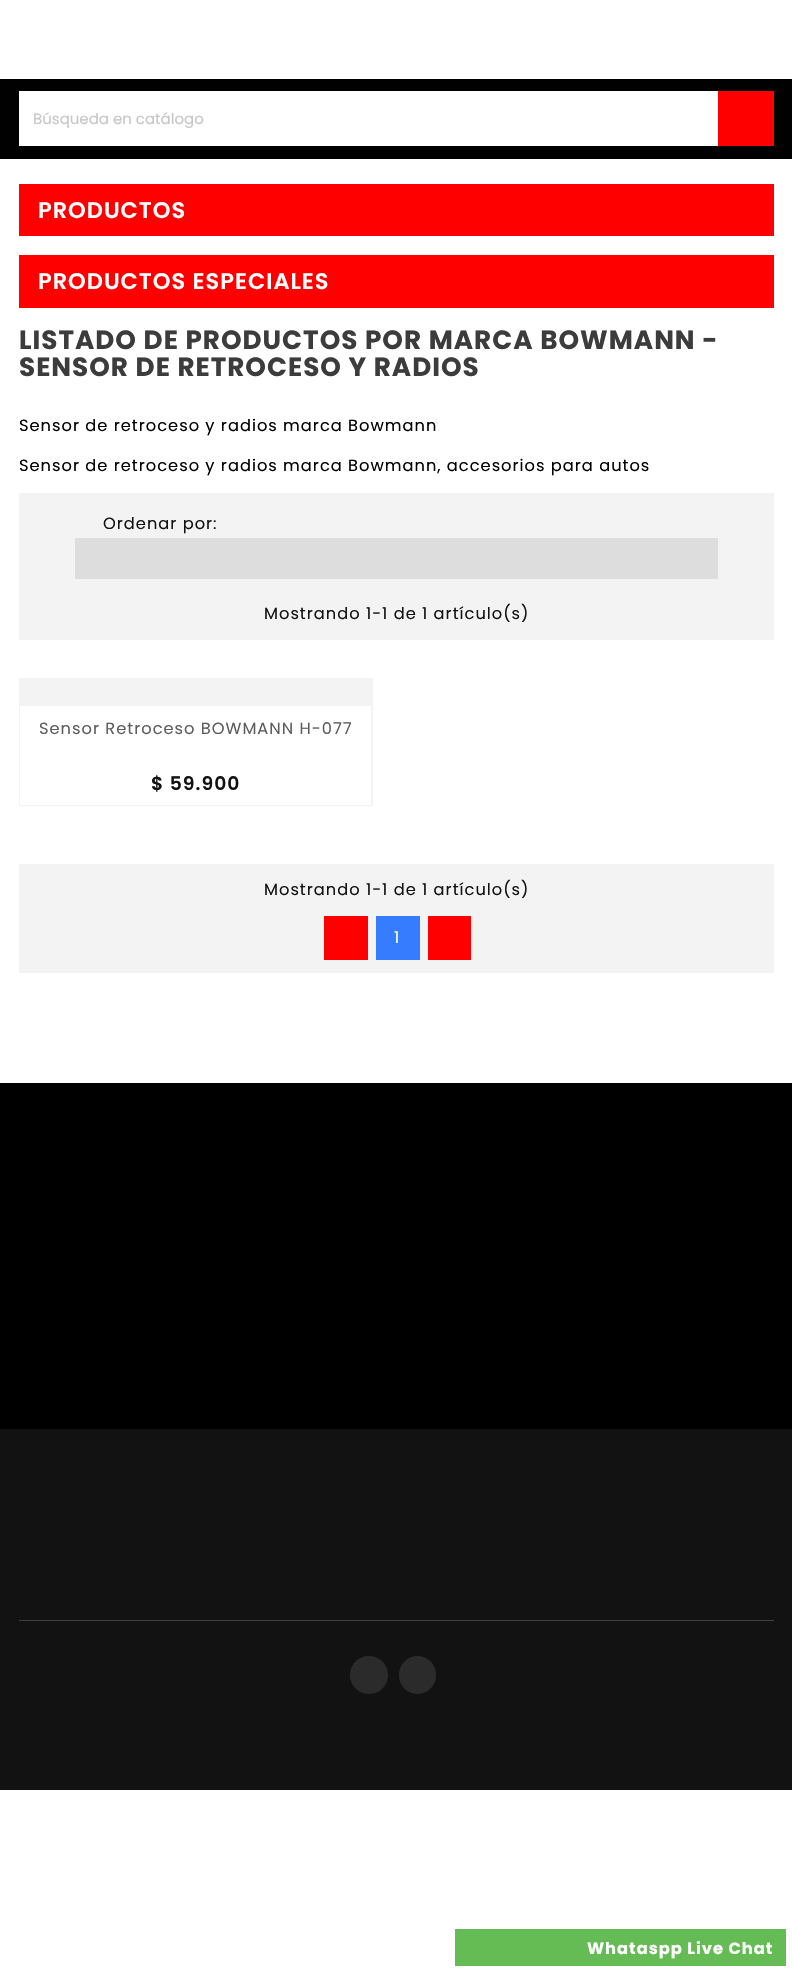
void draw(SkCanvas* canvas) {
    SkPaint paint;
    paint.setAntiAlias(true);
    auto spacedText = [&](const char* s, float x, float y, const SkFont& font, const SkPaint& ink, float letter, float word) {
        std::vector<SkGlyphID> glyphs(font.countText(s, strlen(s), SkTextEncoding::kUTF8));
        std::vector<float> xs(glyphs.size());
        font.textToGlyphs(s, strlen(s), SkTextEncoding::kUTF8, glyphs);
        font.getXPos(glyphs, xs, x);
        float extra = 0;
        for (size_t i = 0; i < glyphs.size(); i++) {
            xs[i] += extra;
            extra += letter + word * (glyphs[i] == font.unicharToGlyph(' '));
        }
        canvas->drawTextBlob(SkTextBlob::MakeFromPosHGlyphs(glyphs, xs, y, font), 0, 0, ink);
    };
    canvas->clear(0xFFFFFFFF);
    paint.setColor(0xFF010101);
    canvas->drawRect(SkRect::MakeXYWH(0, 79, 792, 80), paint);
    paint.setColor(0xFFFFFFFF);
    canvas->drawRect(SkRect::MakeXYWH(19, 91, 699, 55), paint);
    SkFont font1(fontMgr->matchFamilyStyle("Poppins", SkFontStyle::Normal()), 15);
    font1.setSubpixel(true);
    paint.setColor(0xFFC6C6C6);
    canvas->drawString("Búsqueda en catálogo", 33, 124, font1, paint);
    paint.setColor(0xFFFE0000);
    canvas->drawRect(SkRect::MakeXYWH(718, 91, 56, 55), paint);
    canvas->drawRect(SkRect::MakeXYWH(19, 184, 755, 52), paint);
    SkFont font2(fontMgr->matchFamilyStyle("Poppins", SkFontStyle(600, SkFontStyle::kNormal_Width, SkFontStyle::kUpright_Slant)), 22.5f);
    font2.setSubpixel(true);
    paint.setColor(0xFFFFFFFF);
    spacedText("PRODUCTOS", 38, 218, font2, paint, 1, 0);
    paint.setColor(0xFFFE0000);
    canvas->drawRect(SkRect::MakeXYWH(19, 255, 755, 53), paint);
    paint.setColor(0xFFFFFFFF);
    spacedText("PRODUCTOS ESPECIALES", 38, 289, font2, paint, 1, 0);
    SkFont font3(fontMgr->matchFamilyStyle("Poppins", SkFontStyle::Bold()), 26.25f);
    font3.setSubpixel(true);
    paint.setColor(0xFF3C3C3C);
    spacedText("LISTADO DE PRODUCTOS POR MARCA BOWMANN -", 19, 349, font3, paint, 1, 0);
    spacedText("SENSOR DE RETROCESO Y RADIOS", 19, 376, font3, paint, 1, 0);
    SkFont font4(fontMgr->matchFamilyStyle("Poppins", SkFontStyle::Normal()), 16.25f);
    font4.setSubpixel(true);
    paint.setColor(0xFF000000);
    spacedText("Sensor de retroceso y radios marca Bowmann", 19, 431, font4, paint, 1, 0);
    spacedText("Sensor de retroceso y radios marca Bowmann, accesorios para autos", 19, 471, font4, paint, 1, 0);
    paint.setColor(0xFFF3F3F3);
    canvas->drawRect(SkRect::MakeXYWH(19, 493, 755, 147), paint);
    paint.setColor(0xFF121212);
    spacedText("Ordenar por:", 103, 529, font4, paint, 1, 0);
    paint.setColor(0xFFDDDDDD);
    canvas->drawRect(SkRect::MakeXYWH(75, 538, 643, 41), paint);
    paint.setColor(0xFF121212);
    spacedText("Mostrando 1-1 de 1 artículo(s)", 264, 619, font4, paint, 1, 0);
    paint.setColor(0xFFF3F3F3);
    canvas->drawRect(SkRect::MakeXYWH(19, 678, 354, 128), paint);
    paint.setColor(0xFFFFFFFF);
    canvas->drawRect(SkRect::MakeXYWH(20, 706, 351, 99), paint);
    paint.setColor(0xFF5D5D5D);
    spacedText("Sensor Retroceso BOWMANN H-077", 39, 734, font4, paint, 1, 0);
    SkFont font5(fontMgr->matchFamilyStyle("Poppins", SkFontStyle(600, SkFontStyle::kNormal_Width, SkFontStyle::kUpright_Slant)), 18.75f);
    font5.setSubpixel(true);
    paint.setColor(0xFF121212);
    spacedText("$ 59.900", 151, 790, font5, paint, 1, 0);
    paint.setColor(0xFFF3F3F3);
    canvas->drawRect(SkRect::MakeXYWH(19, 864, 755, 109), paint);
    paint.setColor(0xFF121212);
    spacedText("Mostrando 1-1 de 1 artículo(s)", 264, 895, font4, paint, 1, 0);
    paint.setColor(0xFFFE0000);
    canvas->drawRect(SkRect::MakeXYWH(324, 916, 44, 44), paint);
    paint.setColor(0xFF357CFF);
    canvas->drawRect(SkRect::MakeXYWH(376, 916, 44, 44), paint);
    paint.setColor(0xFFFFFFFF);
    spacedText("1", 394, 943, font4, paint, 1, 0);
    paint.setColor(0xFFFE0000);
    canvas->drawRect(SkRect::MakeXYWH(428, 916, 43, 44), paint);
    paint.setColor(0xFF000000);
    canvas->drawRect(SkRect::MakeXYWH(0, 1083, 792, 346), paint);
    paint.setColor(0xFF121212);
    canvas->drawRect(SkRect::MakeXYWH(0, 1429, 792, 361), paint);
    paint.setColor(0xFF414141);
    canvas->drawRect(SkRect::MakeXYWH(19, 1620, 755, 1), paint);
    paint.setColor(0xFF2A2B2A);
    canvas->drawCircle(369, 1675, 19, paint);
    canvas->drawRoundRect(SkRect::MakeXYWH(399, 1656, 37, 38), 18.5f, 18.5f, paint);
    paint.setColor(0xFF65BC54);
    canvas->drawRect(SkRect::MakeXYWH(455, 1929, 331, 37), paint);
    SkFont font6(fontMgr->matchFamilyStyle("Poppins", SkFontStyle::Bold()), 16.25f);
    font6.setSubpixel(true);
    paint.setColor(0xFFFFFFFF);
    spacedText("Whataspp Live Chat", 587, 1954, font6, paint, 1, 0);
}
